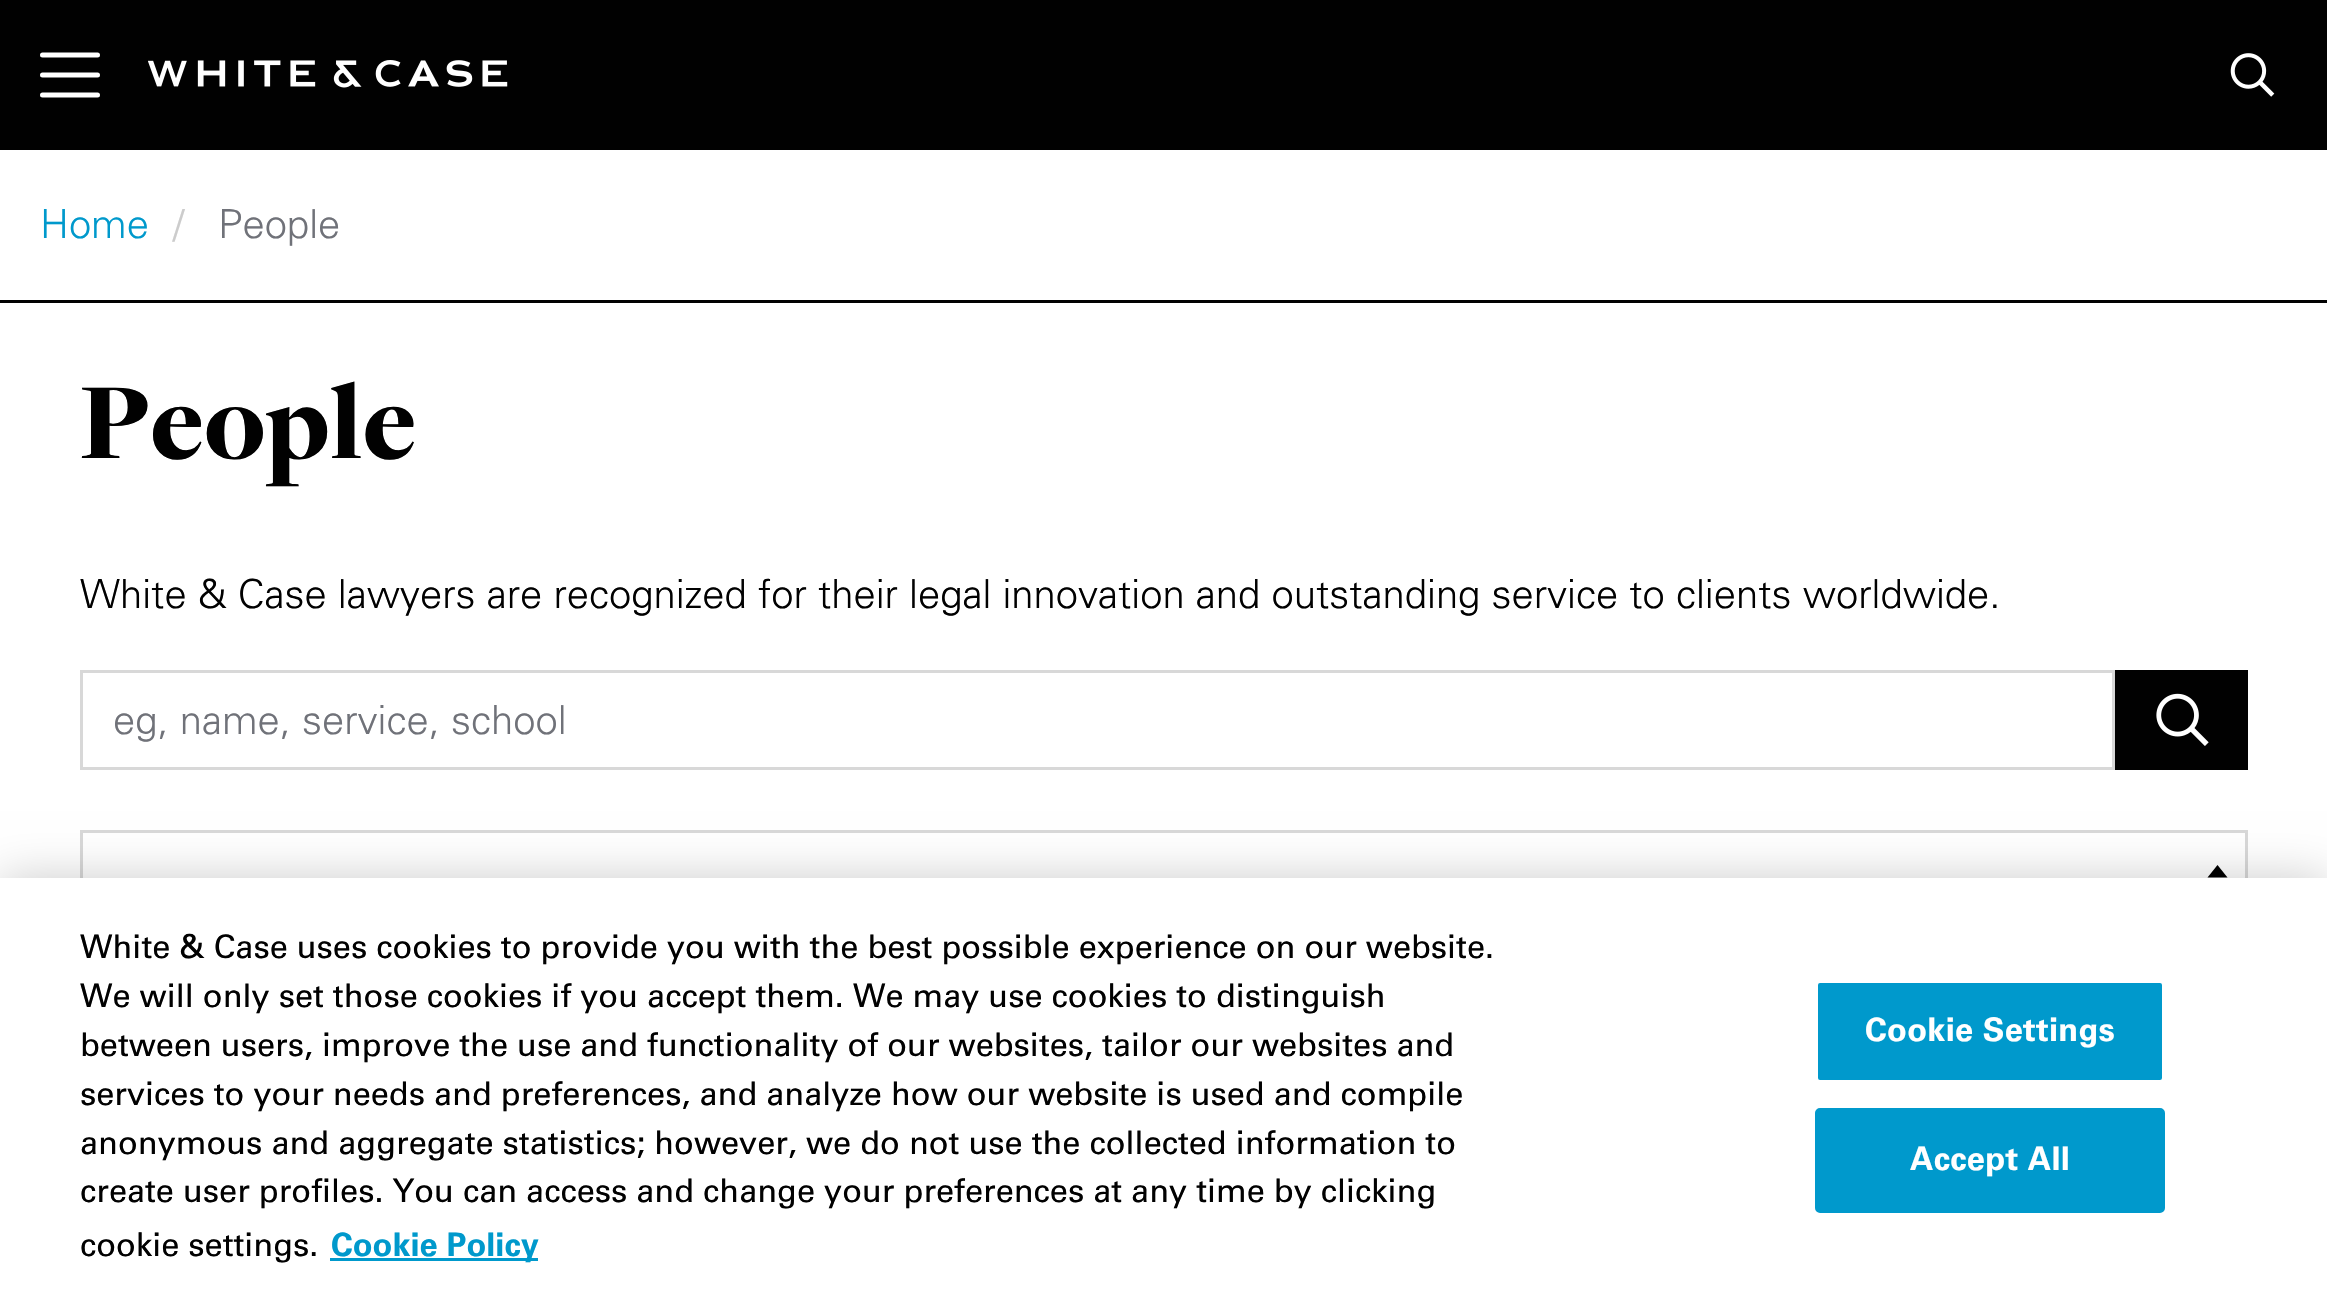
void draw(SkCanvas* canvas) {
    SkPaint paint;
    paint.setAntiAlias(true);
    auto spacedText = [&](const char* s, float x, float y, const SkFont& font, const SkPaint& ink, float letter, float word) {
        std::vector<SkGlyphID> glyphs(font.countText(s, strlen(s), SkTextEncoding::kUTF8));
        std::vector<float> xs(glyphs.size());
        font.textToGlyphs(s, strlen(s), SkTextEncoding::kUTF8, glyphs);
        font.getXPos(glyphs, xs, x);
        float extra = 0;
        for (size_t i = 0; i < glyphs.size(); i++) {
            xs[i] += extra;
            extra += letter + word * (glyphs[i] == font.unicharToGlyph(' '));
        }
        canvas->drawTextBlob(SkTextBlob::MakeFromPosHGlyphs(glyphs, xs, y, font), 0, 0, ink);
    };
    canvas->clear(0xFFFFFFFF);
    paint.setColor(0xFF010101);
    canvas->drawRect(SkRect::MakeXYWH(0, 0, 2327, 150), paint);
    paint.setStyle(SkPaint::kStroke_Style);
    paint.setStrokeWidth(5);
    paint.setStrokeCap(SkPaint::kRound_Cap);
    paint.setColor(0xFFFFFFFF);
    canvas->drawPath(SkPathBuilder().moveTo(42.5f, 55).lineTo(97.5f, 55).moveTo(42.5f, 75).lineTo(97.5f, 75).moveTo(42.5f, 95).lineTo(97.5f, 95).detach(), paint);
    canvas->drawImageRect(SkImages::DeferredFromEncodedData(SkData::MakeFromFileName("img1.png")), SkRect::MakeXYWH(148, 60, 360, 28), SkSamplingOptions());
    canvas->drawImageRect(SkImages::DeferredFromEncodedData(SkData::MakeFromFileName("img2.png")), SkRect::MakeXYWH(2230, 53, 45, 44), SkSamplingOptions());
    paint.setStyle(SkPaint::kFill_Style);
    paint.setColor(0xFF010101);
    canvas->drawRect(SkRect::MakeXYWH(0, 300, 2327, 3), paint);
    SkFont font1(fontMgr->matchFamilyStyle("Univers", SkFontStyle(300, SkFontStyle::kNormal_Width, SkFontStyle::kUpright_Slant)), 40);
    font1.setSubpixel(true);
    paint.setColor(0xFF0099CC);
    canvas->drawString("Home", 40, 238, font1, paint);
    paint.setColor(0xFFCCCCCC);
    canvas->drawString("/", 173, 238, font1, paint);
    paint.setColor(0xFF707279);
    canvas->drawString("People", 218, 238, font1, paint);
    SkFont font2(fontMgr->matchFamilyStyle("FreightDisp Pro", SkFontStyle::Normal()), 112.5f);
    font2.setSubpixel(true);
    paint.setColor(0xFF010101);
    canvas->drawString("People", 80, 458, font2, paint);
    canvas->drawString("White & Case lawyers are recognized for their legal innovation and outstanding service to clients worldwide.", 80, 608, font1, paint);
    paint.setStyle(SkPaint::kStroke_Style);
    paint.setStrokeWidth(3);
    paint.setStrokeCap(SkPaint::kButt_Cap);
    paint.setColor(0xFFD8D8D8);
    canvas->drawRect(SkRect::MakeXYWH(81.5f, 671.5f, 2032, 97), paint);
    paint.setStyle(SkPaint::kFill_Style);
    paint.setColor(0xFF707279);
    canvas->drawString("eg, name, service, school", 113, 734, font1, paint);
    paint.setColor(0xFF010101);
    canvas->drawRect(SkRect::MakeXYWH(2115, 670, 133, 100), paint);
    canvas->drawImageRect(SkImages::DeferredFromEncodedData(SkData::MakeFromFileName("img3.png")), SkRect::MakeXYWH(2156, 693, 53, 53), SkSamplingOptions());
    paint.setStyle(SkPaint::kStroke_Style);
    paint.setColor(0xFFD8D8D8);
    canvas->drawRect(SkRect::MakeXYWH(81.5f, 831.5f, 2165, 97), paint);
    paint.setStyle(SkPaint::kFill_Style);
    paint.setColor(0xFF000000);
    canvas->drawPath(SkPathBuilder().moveTo(2227.5f, 877.5f).lineTo(2207.5f, 877.5f).lineTo(2217.5f, 865).close().detach(), paint);
    paint.setColor(0x33000000);
    paint.setMaskFilter(SkMaskFilter::MakeBlur(kNormal_SkBlurStyle, 22.5f));
    canvas->drawRect(SkRect::MakeXYWH(0, 878, 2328, 422), paint);
    paint.setMaskFilter(nullptr);
    paint.setColor(0xFFFFFFFF);
    canvas->drawRect(SkRect::MakeXYWH(0, 878, 2327, 422), paint);
    SkFont font3(fontMgr->matchFamilyStyle("Univers", SkFontStyle::Normal()), 32.5f);
    font3.setSubpixel(true);
    paint.setColor(0xFF010101);
    canvas->drawString("White & Case uses cookies to provide you with the best possible experience on our website.", 80, 958, font3, paint);
    canvas->drawString("We will only set those cookies if you accept them. We may use cookies to distinguish", 80, 1007, font3, paint);
    canvas->drawString("between users, improve the use and functionality of our websites, tailor our websites and", 80, 1056, font3, paint);
    canvas->drawString("services to your needs and preferences, and analyze how our website is used and compile", 80, 1105, font3, paint);
    canvas->drawString("anonymous and aggregate statistics; however, we do not use the collected information to", 80, 1154, font3, paint);
    canvas->drawString("create user profiles. You can access and change your preferences at any time by clicking", 80, 1202, font3, paint);
    canvas->drawString("cookie settings.", 80, 1256, font3, paint);
    paint.setColor(0xFF0099CC);
    canvas->drawRect(SkRect::MakeXYWH(330, 1258, 208, 3), paint);
    SkFont font4(fontMgr->matchFamilyStyle("Univers", SkFontStyle::Bold()), 32.5f);
    font4.setSubpixel(true);
    canvas->drawString("Cookie Policy", 331, 1256, font4, paint);
    canvas->drawRoundRect(SkRect::MakeXYWH(1816.5f, 981.5f, 347, 100), 3.5f, 3.5f, paint);
    paint.setStyle(SkPaint::kStroke_Style);
    paint.setColor(0xFFFFFFFF);
    canvas->drawRoundRect(SkRect::MakeXYWH(1816.5f, 981.5f, 347, 100), 3.5f, 3.5f, paint);
    paint.setStyle(SkPaint::kFill_Style);
    spacedText("Cookie Settings", 1865, 1041, font4, paint, 0.3f, 0);
    paint.setColor(0xFF0099CC);
    canvas->drawRoundRect(SkRect::MakeXYWH(1816.5f, 1109.5f, 347, 102), 3.5f, 3.5f, paint);
    paint.setStyle(SkPaint::kStroke_Style);
    canvas->drawRoundRect(SkRect::MakeXYWH(1816.5f, 1109.5f, 347, 102), 3.5f, 3.5f, paint);
    paint.setStyle(SkPaint::kFill_Style);
    paint.setColor(0xFFFFFFFF);
    spacedText("Accept All", 1910, 1170, font4, paint, 0.3f, 0);
}
